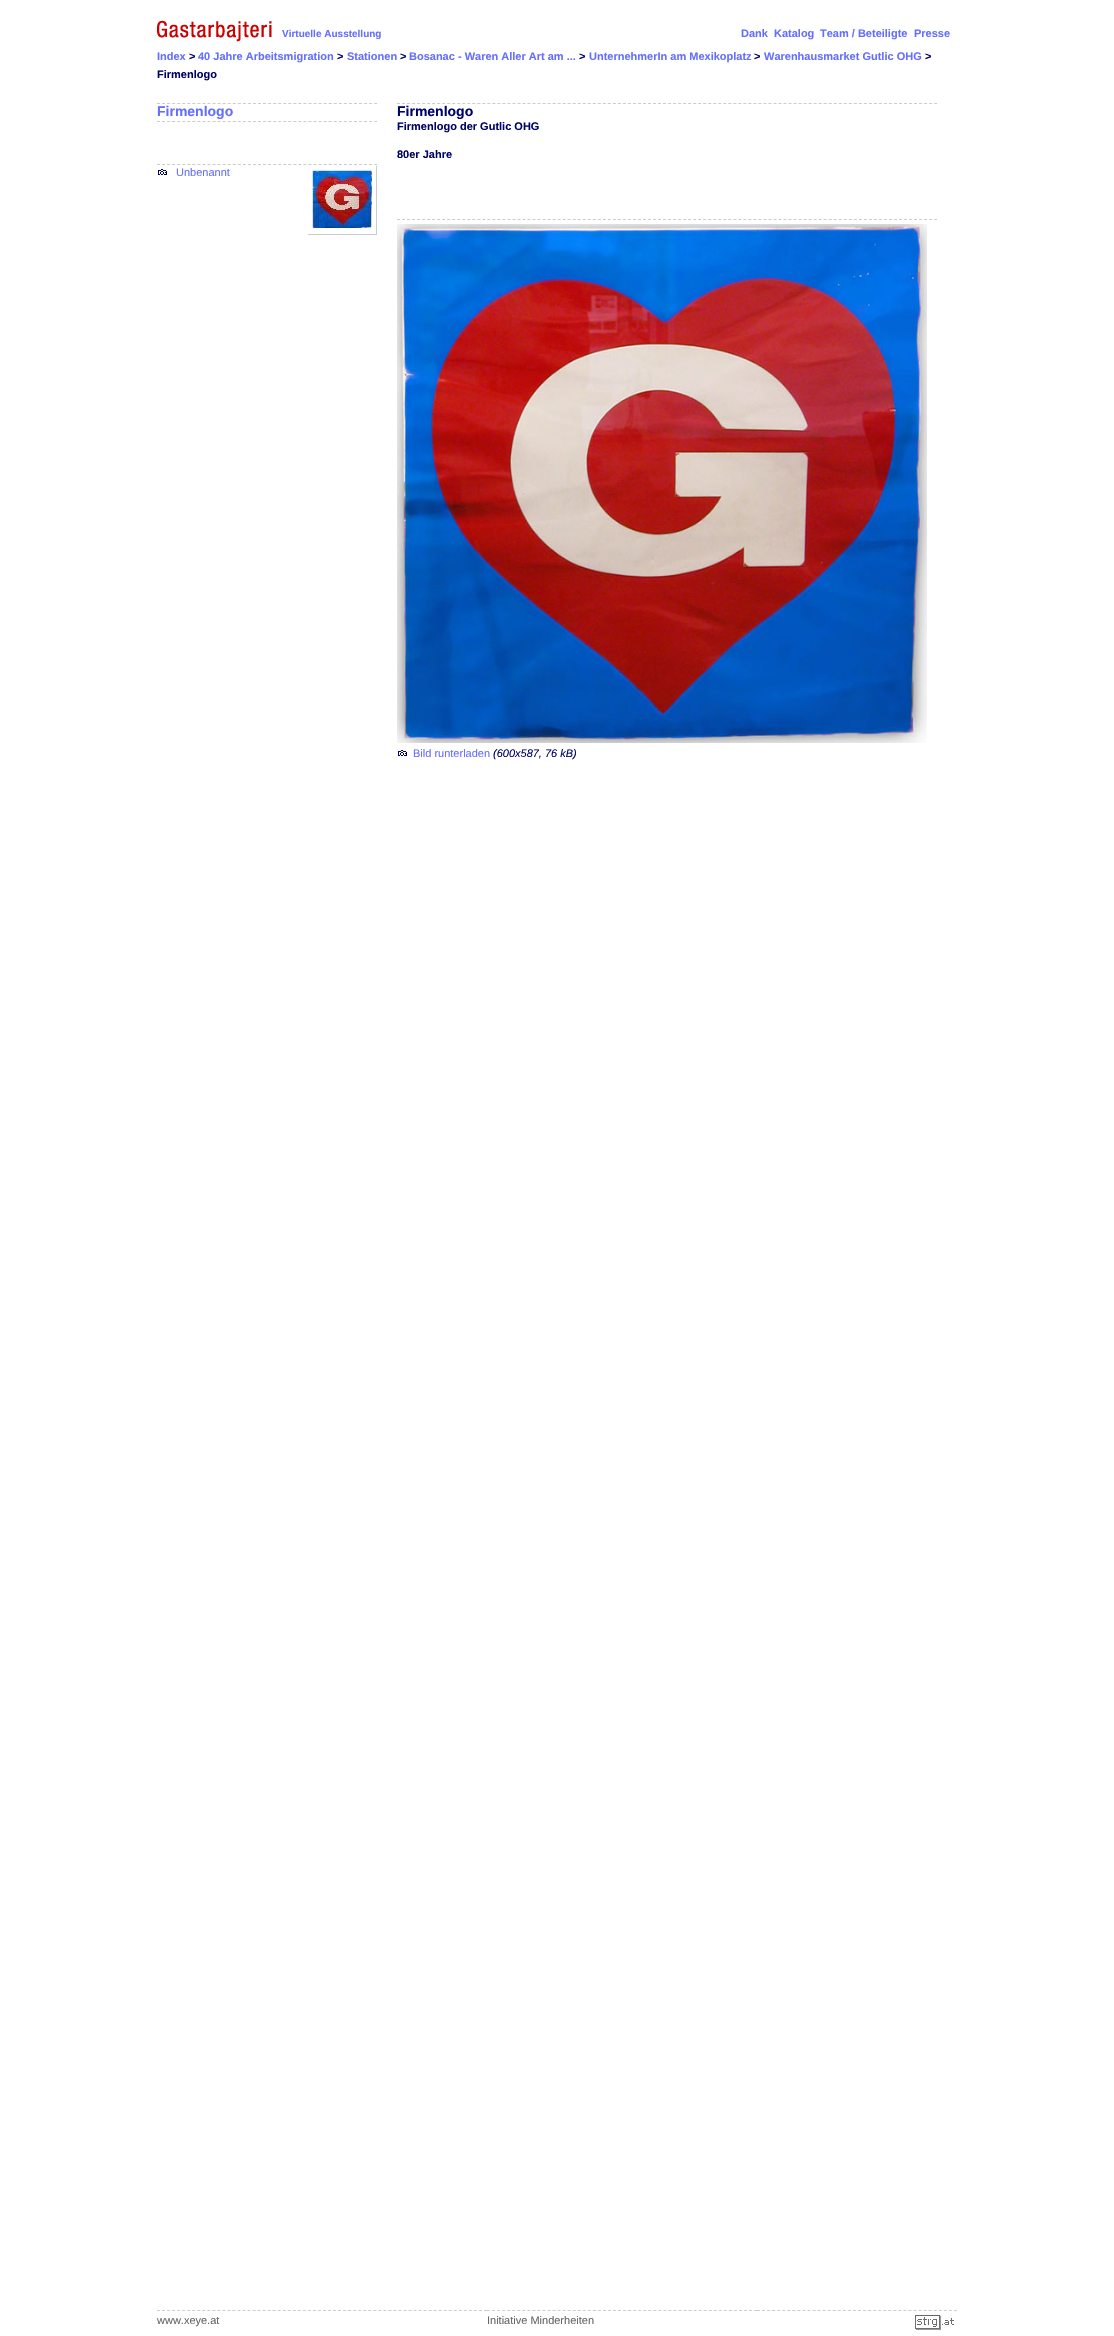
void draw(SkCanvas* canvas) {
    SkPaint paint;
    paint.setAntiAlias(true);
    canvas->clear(0xFFFFFFFF);
    canvas->drawImageRect(SkImages::DeferredFromEncodedData(SkData::MakeFromFileName("img1.png")), SkRect::MakeXYWH(157, 20, 115, 22), SkSamplingOptions());
    SkFont font1(fontMgr->matchFamilyStyle("Liberation Sans", SkFontStyle::Bold()), 10);
    font1.setSubpixel(true);
    paint.setColor(0xFF656FFE);
    canvas->drawString("Virtuelle Ausstellung", 282, 37, font1, paint);
    SkFont font2(fontMgr->matchFamilyStyle("Liberation Sans", SkFontStyle::Bold()), 11);
    font2.setSubpixel(true);
    canvas->drawString("Dank", 741, 37, font2, paint);
    canvas->drawString("Katalog", 774, 37, font2, paint);
    canvas->drawString("Team / Beteiligte", 820, 37, font2, paint);
    canvas->drawString("Presse", 914, 37, font2, paint);
    canvas->drawString("Index", 157, 60, font2, paint);
    paint.setColor(0xFF000266);
    canvas->drawString(">", 189, 60, font2, paint);
    paint.setColor(0xFF656FFE);
    canvas->drawString("40 Jahre Arbeitsmigration", 198, 60, font2, paint);
    paint.setColor(0xFF000266);
    canvas->drawString(">", 337, 60, font2, paint);
    paint.setColor(0xFF656FFE);
    canvas->drawString("Stationen", 347, 60, font2, paint);
    paint.setColor(0xFF000266);
    canvas->drawString(">", 400, 60, font2, paint);
    paint.setColor(0xFF656FFE);
    canvas->drawString("Bosanac - Waren Aller Art am ...", 409, 60, font2, paint);
    paint.setColor(0xFF000266);
    canvas->drawString(">", 579, 60, font2, paint);
    paint.setColor(0xFF656FFE);
    canvas->drawString("UnternehmerIn am Mexikoplatz", 589, 60, font2, paint);
    paint.setColor(0xFF000266);
    canvas->drawString(">", 754, 60, font2, paint);
    paint.setColor(0xFF656FFE);
    canvas->drawString("Warenhausmarket Gutlic OHG", 764, 60, font2, paint);
    paint.setColor(0xFF000266);
    canvas->drawString(">", 925, 60, font2, paint);
    canvas->drawString("Firmenlogo", 157, 78, font2, paint);
    paint.setStyle(SkPaint::kStroke_Style);
    paint.setStrokeWidth(1);
    paint.setColor(0xFFCCCCCC);
    paint.setPathEffect(SkDashPathEffect::Make({{3, 2.05f}}, 0));
    canvas->drawPath(SkPathBuilder().moveTo(157, 103.5f).lineTo(377, 103.5f).detach(), paint);
    paint.setPathEffect(nullptr);
    paint.setPathEffect(SkDashPathEffect::Make({{3, 2.05f}}, 0));
    canvas->drawPath(SkPathBuilder().moveTo(157, 121.5f).lineTo(377, 121.5f).detach(), paint);
    paint.setPathEffect(nullptr);
    SkFont font3(fontMgr->matchFamilyStyle("Liberation Sans", SkFontStyle::Bold()), 14);
    font3.setSubpixel(true);
    paint.setStyle(SkPaint::kFill_Style);
    paint.setColor(0xFF656FFE);
    canvas->drawString("Firmenlogo", 157, 116, font3, paint);
    paint.setStyle(SkPaint::kStroke_Style);
    paint.setColor(0xFFCCCCCC);
    paint.setPathEffect(SkDashPathEffect::Make({{3, 2.05f}}, 0));
    canvas->drawPath(SkPathBuilder().moveTo(157, 164.5f).lineTo(377, 164.5f).detach(), paint);
    paint.setPathEffect(nullptr);
    canvas->drawImageRect(SkImages::DeferredFromEncodedData(SkData::MakeFromFileName("img2.png")), SkRect::MakeXYWH(158, 169, 9, 6), SkSamplingOptions());
    SkFont font4(fontMgr->matchFamilyStyle("Liberation Sans", SkFontStyle::Normal()), 11);
    font4.setSubpixel(true);
    paint.setStyle(SkPaint::kFill_Style);
    paint.setColor(0xFF656FFE);
    canvas->drawString("Unbenannt", 176, 176, font4, paint);
    paint.setColor(0xFFCCCCCC);
    canvas->drawRect(SkRect::MakeXYWH(376, 166, 1, 69), paint);
    canvas->drawRect(SkRect::MakeXYWH(308, 234, 69, 1), paint);
    canvas->drawImageRect(SkImages::DeferredFromEncodedData(SkData::MakeFromFileName("img3.png")), SkRect::MakeXYWH(312, 170, 60, 58), SkSamplingOptions());
    paint.setStyle(SkPaint::kStroke_Style);
    paint.setPathEffect(SkDashPathEffect::Make({{3, 2.02f}}, 0));
    canvas->drawPath(SkPathBuilder().moveTo(397, 103.5f).lineTo(937, 103.5f).detach(), paint);
    paint.setPathEffect(nullptr);
    paint.setStyle(SkPaint::kFill_Style);
    paint.setColor(0xFF000266);
    canvas->drawString("Firmenlogo", 397, 116, font3, paint);
    canvas->drawString("Firmenlogo der Gutlic OHG", 397, 130, font2, paint);
    canvas->drawString("80er Jahre", 397, 158, font2, paint);
    paint.setStyle(SkPaint::kStroke_Style);
    paint.setColor(0xFFCCCCCC);
    paint.setPathEffect(SkDashPathEffect::Make({{3, 2.02f}}, 0));
    canvas->drawPath(SkPathBuilder().moveTo(397, 219.5f).lineTo(937, 219.5f).detach(), paint);
    paint.setPathEffect(nullptr);
    canvas->drawImageRect(SkImages::DeferredFromEncodedData(SkData::MakeFromFileName("img4.png")), SkRect::MakeXYWH(397, 224, 530, 519), SkSamplingOptions());
    canvas->drawImageRect(SkImages::DeferredFromEncodedData(SkData::MakeFromFileName("img2.png")), SkRect::MakeXYWH(398, 750, 9, 6), SkSamplingOptions());
    paint.setStyle(SkPaint::kFill_Style);
    paint.setColor(0xFF656FFE);
    canvas->drawString("Bild runterladen", 413, 757, font4, paint);
    SkFont font5(fontMgr->matchFamilyStyle("Liberation Sans", SkFontStyle::Italic()), 11);
    font5.setSubpixel(true);
    paint.setColor(0xFF000266);
    canvas->drawString("(600x587, 76 kB)", 493, 757, font5, paint);
    paint.setStyle(SkPaint::kStroke_Style);
    paint.setColor(0xFFCCCCCC);
    paint.setPathEffect(SkDashPathEffect::Make({{3, 2.03f}}, 0));
    canvas->drawPath(SkPathBuilder().moveTo(157, 2310.5f).lineTo(487, 2310.5f).detach(), paint);
    paint.setPathEffect(nullptr);
    paint.setStyle(SkPaint::kFill_Style);
    paint.setColor(0xFF666666);
    canvas->drawString("www.xeye.at", 157, 2324, font4, paint);
    paint.setStyle(SkPaint::kStroke_Style);
    paint.setColor(0xFFCCCCCC);
    paint.setPathEffect(SkDashPathEffect::Make({{3, 2.04f}}, 0));
    canvas->drawPath(SkPathBuilder().moveTo(487, 2310.5f).lineTo(757, 2310.5f).detach(), paint);
    paint.setPathEffect(nullptr);
    paint.setStyle(SkPaint::kFill_Style);
    paint.setColor(0xFF666666);
    canvas->drawString("Initiative Minderheiten", 487, 2324, font4, paint);
    paint.setStyle(SkPaint::kStroke_Style);
    paint.setColor(0xFFCCCCCC);
    paint.setPathEffect(SkDashPathEffect::Make({{3, 2.05f}}, 0));
    canvas->drawPath(SkPathBuilder().moveTo(757, 2310.5f).lineTo(957, 2310.5f).detach(), paint);
    paint.setPathEffect(nullptr);
    canvas->drawImageRect(SkImages::DeferredFromEncodedData(SkData::MakeFromFileName("img5.png")), SkRect::MakeXYWH(915, 2315, 39, 15), SkSamplingOptions());
}
